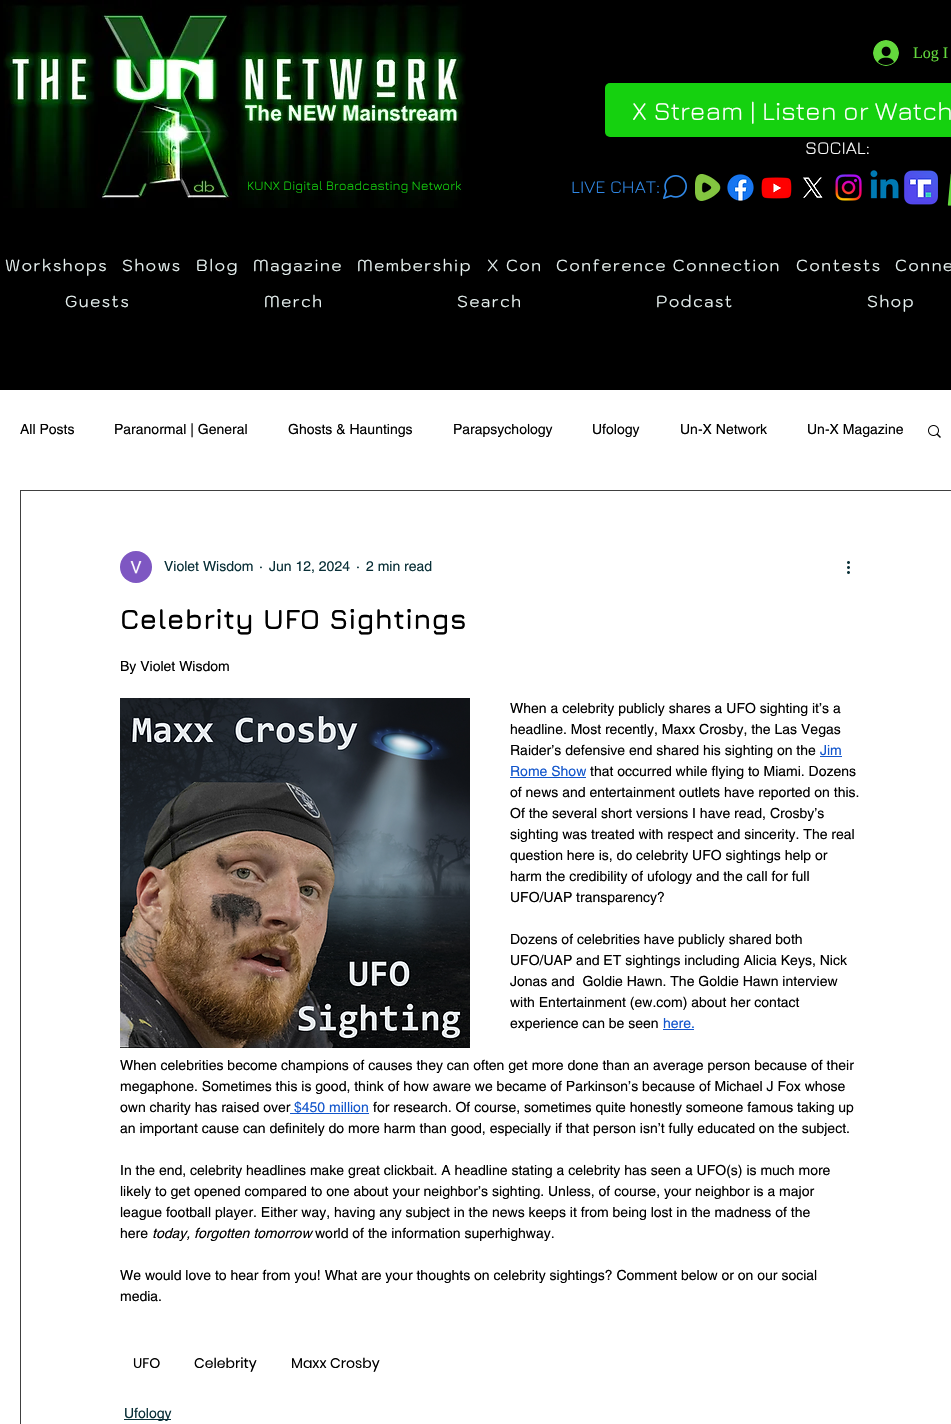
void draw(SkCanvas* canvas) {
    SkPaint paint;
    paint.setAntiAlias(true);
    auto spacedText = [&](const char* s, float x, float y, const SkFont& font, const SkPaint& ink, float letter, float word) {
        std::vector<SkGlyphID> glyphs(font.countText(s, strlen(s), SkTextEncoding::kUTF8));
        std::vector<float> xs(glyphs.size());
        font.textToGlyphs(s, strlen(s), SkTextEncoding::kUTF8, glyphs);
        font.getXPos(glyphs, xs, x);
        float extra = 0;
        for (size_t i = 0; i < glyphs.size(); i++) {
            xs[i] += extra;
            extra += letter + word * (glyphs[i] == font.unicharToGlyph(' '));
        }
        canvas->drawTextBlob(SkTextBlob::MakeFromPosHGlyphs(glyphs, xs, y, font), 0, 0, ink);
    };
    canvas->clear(0xFF000000);
    canvas->drawImageRect(SkImages::DeferredFromEncodedData(SkData::MakeFromFileName("img1.png")), SkRect::MakeXYWH(3, 0, 463, 208), SkSamplingOptions());
    canvas->drawImageRect(SkImages::DeferredFromEncodedData(SkData::MakeFromFileName("img2.png")), SkRect::MakeXYWH(873, 40, 26, 26), SkSamplingOptions());
    SkFont font1(fontMgr->matchFamilyStyle("Liberation Serif", SkFontStyle::Normal()), 16);
    font1.setSubpixel(true);
    paint.setColor(0xFF64D93D);
    canvas->drawString("Log I", 913, 58, font1, paint);
    paint.setColor(0xFF15D10F);
    canvas->drawRoundRect(SkRect::MakeXYWH(605, 83, 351, 54), 5, 5, paint);
    SkFont font2(fontMgr->matchFamilyStyle("Jura", SkFontStyle::Normal()), 26);
    font2.setSubpixel(true);
    paint.setColor(0xFFFFFFFF);
    canvas->drawString("X Stream | Listen or Watch", 632, 120, font2, paint);
    SkFont font3(fontMgr->matchFamilyStyle("Jura", SkFontStyle::Normal()), 18);
    font3.setSubpixel(true);
    canvas->drawString("SOCIAL:", 805, 154, font3, paint);
    SkFont font4(fontMgr->matchFamilyStyle("Jura", SkFontStyle::Normal()), 13);
    font4.setSubpixel(true);
    paint.setColor(0xFF15D10F);
    canvas->drawString("KUNX Digital Broadcasting Network", 247, 190, font4, paint);
    paint.setColor(0xFF3088E6);
    canvas->drawString("LIVE CHAT:", 571, 193, font3, paint);
    canvas->drawImageRect(SkImages::DeferredFromEncodedData(SkData::MakeFromFileName("img3.png")), SkRect::MakeXYWH(663, 175, 24, 24), SkSamplingOptions());
    canvas->drawImageRect(SkImages::DeferredFromEncodedData(SkData::MakeFromFileName("img4.png")), SkRect::MakeXYWH(695, 174, 26, 27), SkSamplingOptions());
    canvas->drawImageRect(SkImages::DeferredFromEncodedData(SkData::MakeFromFileName("img5.png")), SkRect::MakeXYWH(727, 174, 27, 27), SkSamplingOptions());
    canvas->drawImageRect(SkImages::DeferredFromEncodedData(SkData::MakeFromFileName("img6.png")), SkRect::MakeXYWH(761, 177, 31, 22), SkSamplingOptions());
    canvas->drawImageRect(SkImages::DeferredFromEncodedData(SkData::MakeFromFileName("img7.png")), SkRect::MakeXYWH(803, 177, 20, 21), SkSamplingOptions());
    canvas->drawImageRect(SkImages::DeferredFromEncodedData(SkData::MakeFromFileName("img8.png")), SkRect::MakeXYWH(835, 174, 27, 27), SkSamplingOptions());
    canvas->drawImageRect(SkImages::DeferredFromEncodedData(SkData::MakeFromFileName("img9.png")), SkRect::MakeXYWH(870, 170, 29, 29), SkSamplingOptions());
    canvas->drawImageRect(SkImages::DeferredFromEncodedData(SkData::MakeFromFileName("img10.png")), SkRect::MakeXYWH(903, 170, 35, 35), SkSamplingOptions());
    canvas->drawImageRect(SkImages::DeferredFromEncodedData(SkData::MakeFromFileName("img11.png")), SkRect::MakeXYWH(947, 173, 4, 33), SkSamplingOptions());
    SkFont font5(fontMgr->matchFamilyStyle("Kodchasan", SkFontStyle::Normal()), 16);
    font5.setSubpixel(true);
    paint.setColor(0xFFE7F1F0);
    spacedText("Workshops", 5, 271, font5, paint, 1.6f, 0);
    spacedText("Shows", 122, 271, font5, paint, 1.6f, 0);
    spacedText("Blog", 196, 271, font5, paint, 1.6f, 0);
    spacedText("Magazine", 253, 271, font5, paint, 1.6f, 0);
    spacedText("Membership", 357, 271, font5, paint, 1.6f, 0);
    spacedText("X Con", 487, 271, font5, paint, 1.6f, 0);
    spacedText("Conference Connection", 556, 271, font5, paint, 1.6f, 0);
    spacedText("Contests", 796, 271, font5, paint, 1.6f, 0);
    spacedText("Conne", 895, 271, font5, paint, 1.6f, 0);
    spacedText("Guests", 65, 307, font5, paint, 1.6f, 0);
    spacedText("Merch", 264, 307, font5, paint, 1.6f, 0);
    spacedText("Search", 457, 307, font5, paint, 1.6f, 0);
    spacedText("Podcast", 656, 307, font5, paint, 1.6f, 0);
    spacedText("Shop", 867, 307, font5, paint, 1.6f, 0);
    paint.setColor(0xFFFFFFFF);
    canvas->drawRect(SkRect::MakeXYWH(0, 390, 951, 1034), paint);
    SkFont font6(fontMgr->matchFamilyStyle("helvetica", SkFontStyle::Normal()), 14);
    font6.setSubpixel(true);
    paint.setColor(0xFF000000);
    canvas->drawString("All Posts", 20, 434, font6, paint);
    canvas->drawString("Paranormal | General", 114, 434, font6, paint);
    canvas->drawString("Ghosts & Hauntings", 288, 434, font6, paint);
    canvas->drawString("Parapsychology", 453, 434, font6, paint);
    canvas->drawString("Ufology", 592, 434, font6, paint);
    canvas->drawString("Un-X Network", 680, 434, font6, paint);
    canvas->drawString("Un-X Magazine", 807, 434, font6, paint);
    canvas->drawImageRect(SkImages::DeferredFromEncodedData(SkData::MakeFromFileName("img12.png")), SkRect::MakeXYWH(928, 425, 13, 13), SkSamplingOptions());
    paint.setStyle(SkPaint::kStroke_Style);
    paint.setStrokeWidth(1);
    paint.setColor(0xFF404040);
    canvas->drawRect(SkRect::MakeXYWH(20.5f, 490.5f, 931, 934), paint);
    canvas->drawImageRect(SkImages::DeferredFromEncodedData(SkData::MakeFromFileName("img13.png")), SkRect::MakeXYWH(120, 551, 32, 32), SkSamplingOptions());
    paint.setStyle(SkPaint::kFill_Style);
    paint.setColor(0xFF092F37);
    canvas->drawString("Violet Wisdom", 164, 571, font6, paint);
    canvas->drawString("·", 259, 571, font6, paint);
    canvas->drawString("Jun 12, 2024", 269, 571, font6, paint);
    canvas->drawString("·", 356, 571, font6, paint);
    canvas->drawString("2 min read", 366, 571, font6, paint);
    canvas->drawImageRect(SkImages::DeferredFromEncodedData(SkData::MakeFromFileName("img14.png")), SkRect::MakeXYWH(847, 561, 3, 13), SkSamplingOptions());
    SkFont font7(fontMgr->matchFamilyStyle("Jura", SkFontStyle::Bold()), 28);
    font7.setSubpixel(true);
    paint.setColor(0xFF000000);
    canvas->drawString("Celebrity UFO Sightings", 120, 629, font7, paint);
    canvas->drawString("By Violet Wisdom", 120, 671, font6, paint);
    canvas->drawImageRect(SkImages::DeferredFromEncodedData(SkData::MakeFromFileName("img15.png")), SkRect::MakeXYWH(120, 698, 350, 350), SkSamplingOptions());
    canvas->drawString("When a celebrity publicly shares a UFO sighting it’s a", 510, 713, font6, paint);
    canvas->drawString("headline. Most recently, Maxx Crosby, the Las Vegas", 510, 734, font6, paint);
    canvas->drawString("Raider’s defensive end shared his sighting on the", 510, 755, font6, paint);
    paint.setColor(0xFF1155CC);
    canvas->drawString("Jim", 820, 755, font6, paint);
    canvas->drawRect(SkRect::MakeXYWH(820, 756, 22, 1), paint);
    canvas->drawString("Rome Show", 510, 776, font6, paint);
    canvas->drawRect(SkRect::MakeXYWH(510, 777, 76, 1), paint);
    paint.setColor(0xFF000000);
    canvas->drawString("that occurred while flying to Miami. Dozens", 590, 776, font6, paint);
    canvas->drawString("of news and entertainment outlets have reported on this.", 510, 797, font6, paint);
    canvas->drawString("Of the several short versions I have read, Crosby’s", 510, 818, font6, paint);
    canvas->drawString("sighting was treated with respect and sincerity. The real", 510, 839, font6, paint);
    canvas->drawString("question here is, do celebrity UFO sightings help or", 510, 860, font6, paint);
    canvas->drawString("harm the credibility of ufology and the call for full", 510, 881, font6, paint);
    canvas->drawString("UFO/UAP transparency?", 510, 902, font6, paint);
    canvas->drawString("Dozens of celebrities have publicly shared both", 510, 944, font6, paint);
    canvas->drawString("UFO/UAP and ET sightings including Alicia Keys, Nick", 510, 965, font6, paint);
    canvas->drawString("Jonas and  Goldie Hawn. The Goldie Hawn interview", 510, 986, font6, paint);
    canvas->drawString("with Entertainment (ew.com) about her contact", 510, 1007, font6, paint);
    canvas->drawString("experience can be seen", 510, 1028, font6, paint);
    paint.setColor(0xFF1155CC);
    canvas->drawString("here.", 663, 1028, font6, paint);
    canvas->drawRect(SkRect::MakeXYWH(663, 1029, 31, 1), paint);
    paint.setColor(0xFF000000);
    canvas->drawString("When celebrities become champions of causes they can often get more done than an average person because of their", 120, 1070, font6, paint);
    canvas->drawString("megaphone. Sometimes this is good, think of how aware we became of Parkinson’s because of Michael J Fox whose", 120, 1091, font6, paint);
    canvas->drawString("own charity has raised over", 120, 1112, font6, paint);
    paint.setColor(0xFF1155CC);
    canvas->drawRect(SkRect::MakeXYWH(290, 1113, 79, 1), paint);
    canvas->drawString("$450 million", 294, 1112, font6, paint);
    paint.setColor(0xFF000000);
    canvas->drawString("for research. Of course, sometimes quite honestly someone famous taking up", 373, 1112, font6, paint);
    canvas->drawString("an important cause can definitely do more harm than good, especially if that person isn’t fully educated on the subject.", 120, 1133, font6, paint);
    canvas->drawString("In the end, celebrity headlines make great clickbait. A headline stating a celebrity has seen a UFO(s) is much more", 120, 1175, font6, paint);
    canvas->drawString("likely to get opened compared to one about your neighbor’s sighting. Unless, of course, your neighbor is a major", 120, 1196, font6, paint);
    canvas->drawString("league football player. Either way, having any subject in the news keeps it from being lost in the madness of the", 120, 1217, font6, paint);
    canvas->drawString("here", 120, 1238, font6, paint);
    SkFont font8(fontMgr->matchFamilyStyle("helvetica", SkFontStyle::Italic()), 14);
    font8.setSubpixel(true);
    canvas->drawString("today, forgotten tomorrow", 152, 1238, font8, paint);
    canvas->drawString("world of the information superhighway.", 315, 1238, font6, paint);
    canvas->drawString("We would love to hear from you! What are your thoughts on celebrity sightings? Comment below or on our social", 120, 1280, font6, paint);
    canvas->drawString("media.", 120, 1301, font6, paint);
    SkFont font9(fontMgr->matchFamilyStyle("Poppins", SkFontStyle::Normal()), 14);
    font9.setSubpixel(true);
    canvas->drawString("UFO", 133, 1368, font9, paint);
    canvas->drawString("Celebrity", 194, 1368, font9, paint);
    canvas->drawString("Maxx Crosby", 291, 1368, font9, paint);
    paint.setColor(0xFF092F37);
    canvas->drawRect(SkRect::MakeXYWH(124, 1419, 47, 1), paint);
    canvas->drawString("Ufology", 124, 1418, font6, paint);
}
